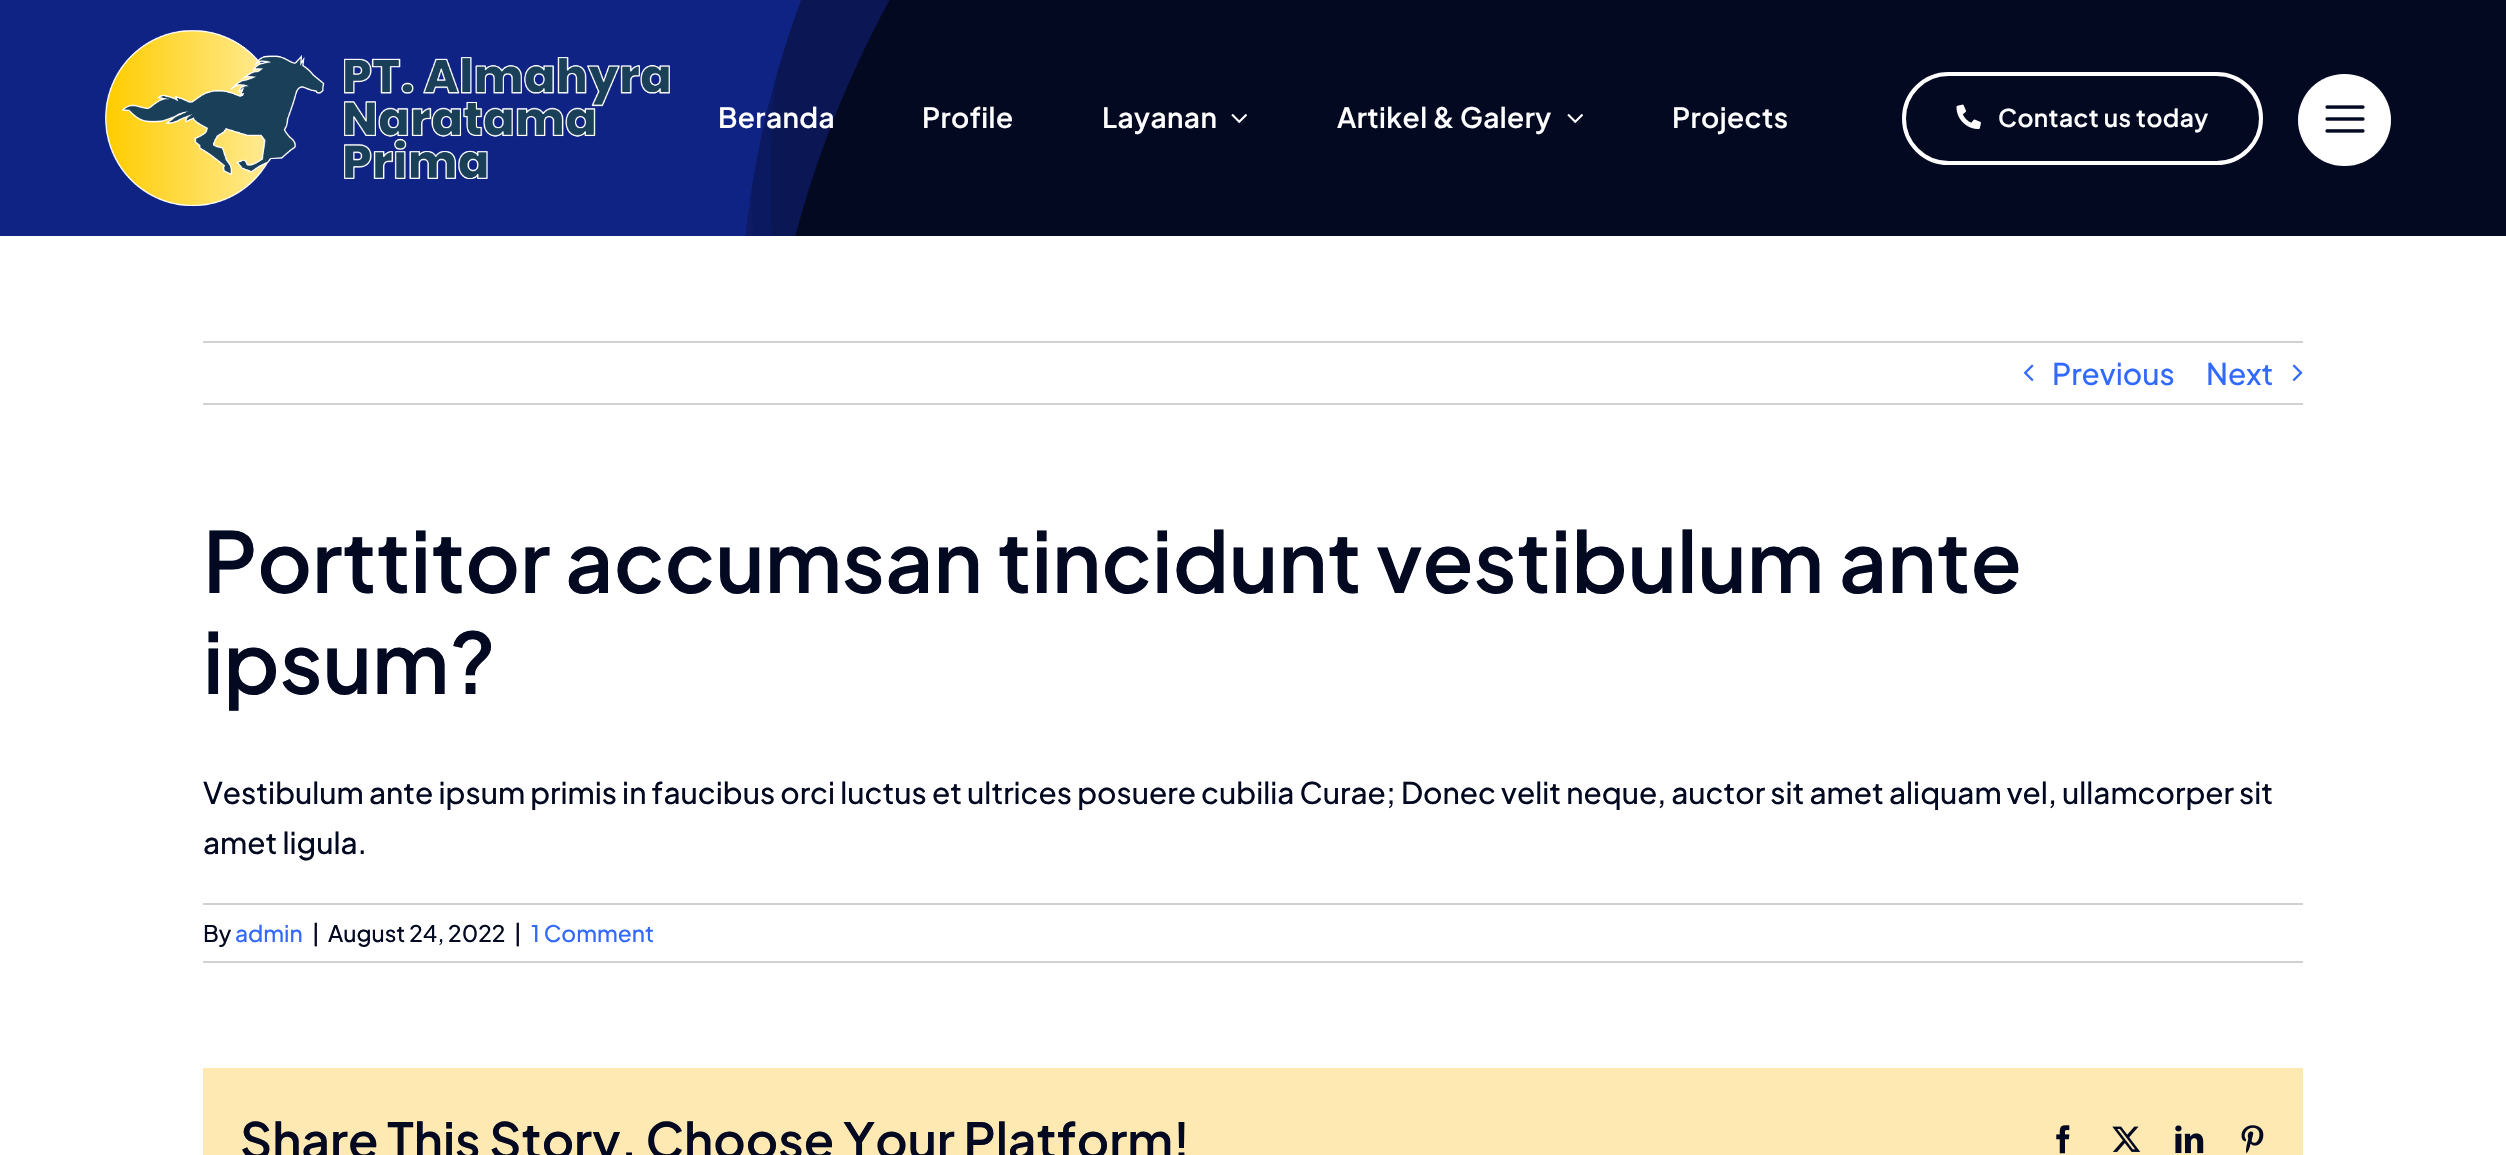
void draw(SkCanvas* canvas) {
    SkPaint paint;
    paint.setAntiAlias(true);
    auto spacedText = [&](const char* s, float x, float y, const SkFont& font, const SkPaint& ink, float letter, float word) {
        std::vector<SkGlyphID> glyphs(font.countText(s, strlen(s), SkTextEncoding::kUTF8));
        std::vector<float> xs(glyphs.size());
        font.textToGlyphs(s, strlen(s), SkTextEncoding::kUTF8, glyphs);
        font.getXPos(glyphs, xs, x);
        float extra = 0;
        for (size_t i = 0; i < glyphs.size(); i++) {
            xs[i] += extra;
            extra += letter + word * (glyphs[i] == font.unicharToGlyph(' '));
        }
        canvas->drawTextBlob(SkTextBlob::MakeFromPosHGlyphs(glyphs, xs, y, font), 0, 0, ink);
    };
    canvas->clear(0xFFFFFFFF);
    paint.setColor(0xFF040922);
    canvas->drawRect(SkRect::MakeXYWH(0, 0, 2506, 236), paint);
    canvas->drawImageRect(SkImages::DeferredFromEncodedData(SkData::MakeFromFileName("img1.png")), SkRect::MakeXYWH(0, 0, 890, 236), SkSamplingOptions());
    canvas->drawImageRect(SkImages::DeferredFromEncodedData(SkData::MakeFromFileName("img2.png")), SkRect::MakeXYWH(105, 30, 565, 177), SkSamplingOptions());
    SkFont font1(fontMgr->matchFamilyStyle("Plus Jakarta Sans", SkFontStyle(600, SkFontStyle::kNormal_Width, SkFontStyle::kUpright_Slant)), 28);
    font1.setSubpixel(true);
    paint.setColor(0xFFFFFFFF);
    spacedText("Beranda", 718, 128, font1, paint, 0.4f, 0);
    spacedText("Profile", 922, 128, font1, paint, 0.4f, 0);
    spacedText("Layanan", 1102, 128, font1, paint, 0.4f, 0);
    canvas->drawImageRect(SkImages::DeferredFromEncodedData(SkData::MakeFromFileName("img3.png")), SkRect::MakeXYWH(1231, 114, 16, 9), SkSamplingOptions());
    spacedText("Artikel & Galery", 1337, 128, font1, paint, 0.4f, 0);
    canvas->drawImageRect(SkImages::DeferredFromEncodedData(SkData::MakeFromFileName("img3.png")), SkRect::MakeXYWH(1567, 114, 16, 9), SkSamplingOptions());
    spacedText("Projects", 1672, 128, font1, paint, 0.4f, 0);
    paint.setStyle(SkPaint::kStroke_Style);
    paint.setStrokeWidth(4);
    canvas->drawRoundRect(SkRect::MakeXYWH(1904, 74, 357, 89), 44.5f, 44.5f, paint);
    canvas->drawImageRect(SkImages::DeferredFromEncodedData(SkData::MakeFromFileName("img4.png")), SkRect::MakeXYWH(1956, 104, 25, 26), SkSamplingOptions());
    SkFont font2(fontMgr->matchFamilyStyle("Plus Jakarta Sans", SkFontStyle(600, SkFontStyle::kNormal_Width, SkFontStyle::kUpright_Slant)), 24.5f);
    font2.setSubpixel(true);
    paint.setStyle(SkPaint::kFill_Style);
    spacedText("Contact us today", 1998, 127, font2, paint, 0.4f, 0);
    canvas->drawRoundRect(SkRect::MakeXYWH(2298, 74, 93, 92), 46, 46, paint);
    canvas->drawImageRect(SkImages::DeferredFromEncodedData(SkData::MakeFromFileName("img5.png")), SkRect::MakeXYWH(2325, 105, 40, 28), SkSamplingOptions());
    paint.setColor(0xFFD1D1D1);
    canvas->drawRect(SkRect::MakeXYWH(203, 341, 2100, 2), paint);
    canvas->drawRect(SkRect::MakeXYWH(203, 403, 2100, 2), paint);
    canvas->drawImageRect(SkImages::DeferredFromEncodedData(SkData::MakeFromFileName("img6.png")), SkRect::MakeXYWH(2023, 364, 11, 17), SkSamplingOptions());
    SkFont font3(fontMgr->matchFamilyStyle("Plus Jakarta Sans", SkFontStyle(500, SkFontStyle::kNormal_Width, SkFontStyle::kUpright_Slant)), 29.75f);
    font3.setSubpixel(true);
    paint.setColor(0xFF3269FF);
    canvas->drawString("Previous", 2052, 385, font3, paint);
    canvas->drawString("Next", 2206, 385, font3, paint);
    canvas->drawImageRect(SkImages::DeferredFromEncodedData(SkData::MakeFromFileName("img7.png")), SkRect::MakeXYWH(2292, 364, 11, 18), SkSamplingOptions());
    SkFont font4(fontMgr->matchFamilyStyle("Plus Jakarta Sans", SkFontStyle(600, SkFontStyle::kNormal_Width, SkFontStyle::kUpright_Slant)), 84);
    font4.setSubpixel(true);
    paint.setColor(0xFF040922);
    canvas->drawString("Porttitor accumsan tincidunt vestibulum ante", 203, 593, font4, paint);
    canvas->drawString("ipsum?", 203, 694, font4, paint);
    canvas->drawString("Vestibulum ante ipsum primis in faucibus orci luctus et ultrices posuere cubilia Curae; Donec velit neque, auctor sit amet aliquam vel, ullamcorper sit", 203, 804, font3, paint);
    canvas->drawString("amet ligula.", 203, 854, font3, paint);
    paint.setColor(0xFFD1D1D1);
    canvas->drawRect(SkRect::MakeXYWH(203, 903, 2100, 2), paint);
    canvas->drawRect(SkRect::MakeXYWH(203, 961, 2100, 2), paint);
    SkFont font5(fontMgr->matchFamilyStyle("Plus Jakarta Sans", SkFontStyle(500, SkFontStyle::kNormal_Width, SkFontStyle::kUpright_Slant)), 22.75f);
    font5.setSubpixel(true);
    paint.setColor(0xFF040922);
    canvas->drawString("By", 203, 942, font5, paint);
    paint.setColor(0xFF3269FF);
    canvas->drawString("admin", 235, 942, font5, paint);
    paint.setColor(0xFF040922);
    canvas->drawString("|", 312, 942, font5, paint);
    canvas->drawString("August 24, 2022", 328, 942, font5, paint);
    canvas->drawString("|", 514, 942, font5, paint);
    paint.setColor(0xFF3269FF);
    canvas->drawString("1 Comment", 531, 942, font5, paint);
    paint.setColor(0xFFFFE9B3);
    canvas->drawRect(SkRect::MakeXYWH(203, 1068, 2100, 87), paint);
    SkFont font6(fontMgr->matchFamilyStyle("Plus Jakarta Sans", SkFontStyle(600, SkFontStyle::kNormal_Width, SkFontStyle::kUpright_Slant)), 49.75f);
    font6.setSubpixel(true);
    paint.setColor(0xFF040922);
    canvas->drawString("Share This Story, Choose Your Platform!", 240, 1159, font6, paint);
    canvas->drawImageRect(SkImages::DeferredFromEncodedData(SkData::MakeFromFileName("img8.png")), SkRect::MakeXYWH(2056, 1125, 14, 29), SkSamplingOptions());
    canvas->drawImageRect(SkImages::DeferredFromEncodedData(SkData::MakeFromFileName("img9.png")), SkRect::MakeXYWH(2112, 1126, 29, 26), SkSamplingOptions());
    canvas->drawImageRect(SkImages::DeferredFromEncodedData(SkData::MakeFromFileName("img10.png")), SkRect::MakeXYWH(2175, 1125, 29, 29), SkSamplingOptions());
    canvas->drawImageRect(SkImages::DeferredFromEncodedData(SkData::MakeFromFileName("img11.png")), SkRect::MakeXYWH(2241, 1125, 23, 29), SkSamplingOptions());
}
